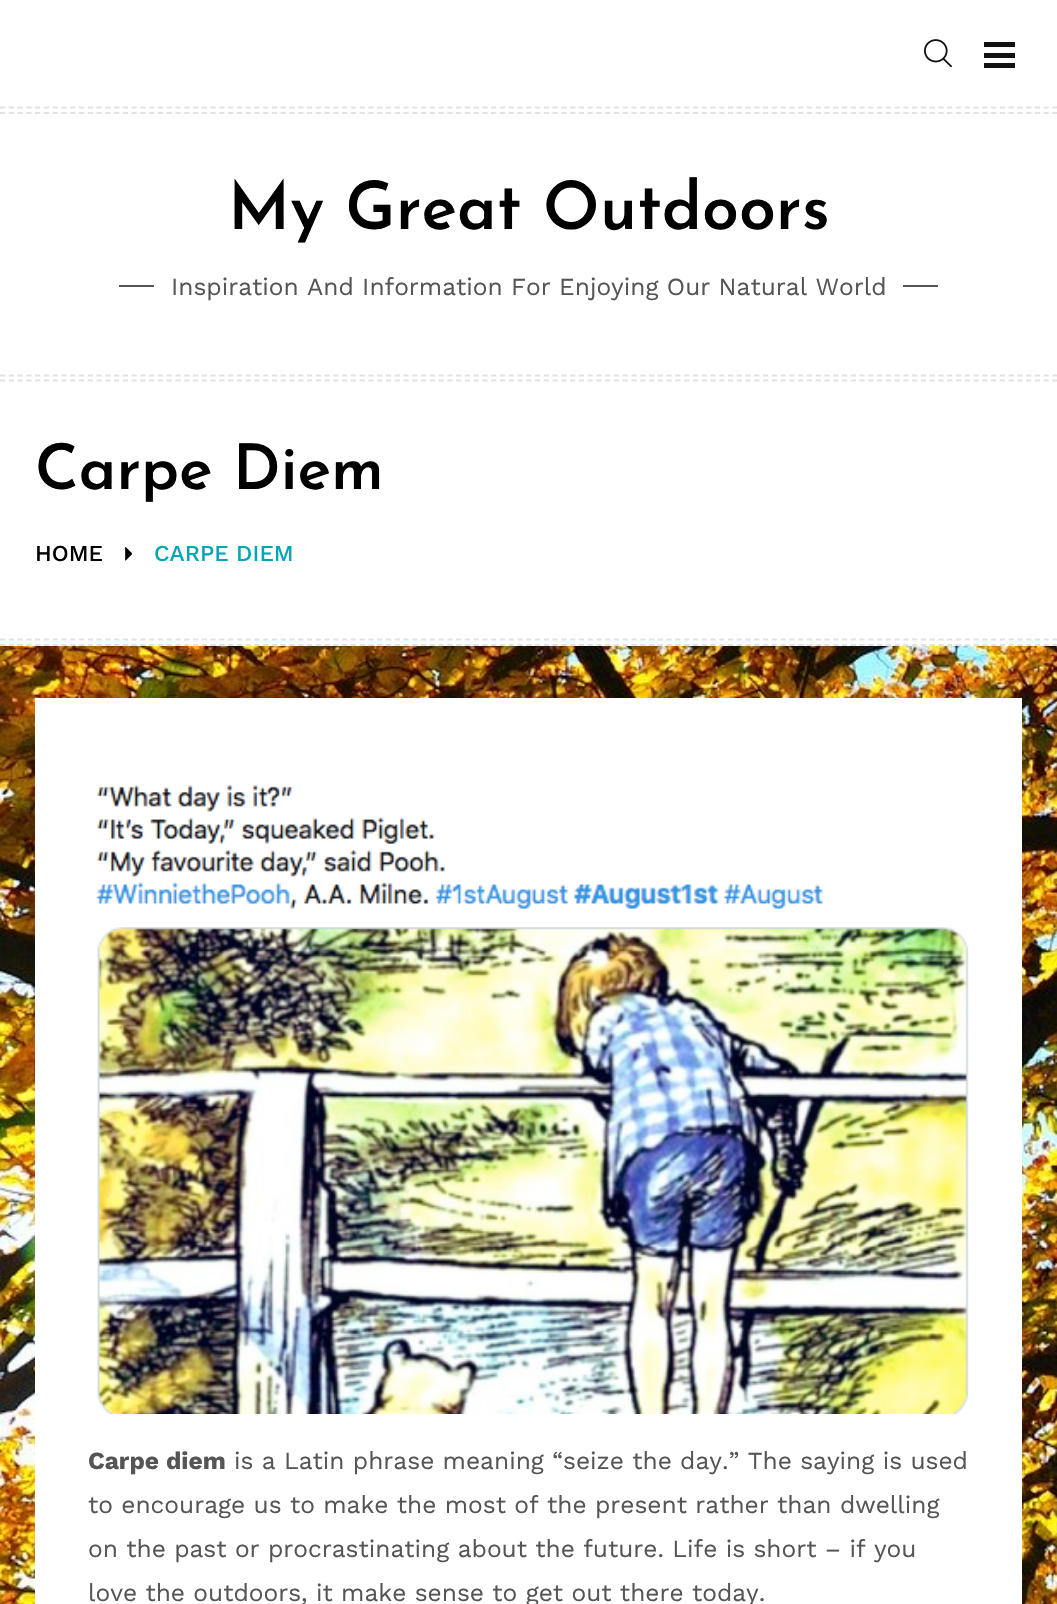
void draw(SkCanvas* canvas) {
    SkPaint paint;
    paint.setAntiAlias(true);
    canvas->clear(0xFFFFFFFF);
    canvas->drawImageRect(SkImages::DeferredFromEncodedData(SkData::MakeFromFileName("img1.png")), SkRect::MakeXYWH(0, 646, 1057, 958), SkSamplingOptions());
    paint.setStyle(SkPaint::kStroke_Style);
    paint.setStrokeWidth(1.8f);
    paint.setColor(0xFFE2E2E2);
    paint.setPathEffect(SkDashPathEffect::Make({{5.25f, 3.52f}}, 0));
    canvas->drawPath(SkPathBuilder().moveTo(0, 113).lineTo(1057, 113).detach(), paint);
    paint.setPathEffect(nullptr);
    canvas->drawImageRect(SkImages::DeferredFromEncodedData(SkData::MakeFromFileName("img2.png")), SkRect::MakeXYWH(924, 39, 28, 29), SkSamplingOptions());
    paint.setStyle(SkPaint::kFill_Style);
    paint.setColor(0xFF111111);
    canvas->drawRect(SkRect::MakeXYWH(984, 42, 31, 5), paint);
    canvas->drawRect(SkRect::MakeXYWH(984, 53, 31, 5), paint);
    canvas->drawRect(SkRect::MakeXYWH(984, 63, 31, 5), paint);
    paint.setStyle(SkPaint::kStroke_Style);
    paint.setColor(0xFFE2E2E2);
    paint.setPathEffect(SkDashPathEffect::Make({{5.25f, 3.52f}}, 0));
    canvas->drawPath(SkPathBuilder().moveTo(0, 107.5f).lineTo(1057, 107.5f).detach(), paint);
    paint.setPathEffect(nullptr);
    paint.setPathEffect(SkDashPathEffect::Make({{5.25f, 3.52f}}, 0));
    canvas->drawPath(SkPathBuilder().moveTo(0, 380.5f).lineTo(1057, 380.5f).detach(), paint);
    paint.setPathEffect(nullptr);
    SkFont font1(fontMgr->matchFamilyStyle("Josefin Sans", SkFontStyle(600, SkFontStyle::kNormal_Width, SkFontStyle::kUpright_Slant)), 66.5f);
    font1.setSubpixel(true);
    paint.setStyle(SkPaint::kFill_Style);
    paint.setColor(0xFF000000);
    canvas->drawString("My Great Outdoors", 228, 229, font1, paint);
    paint.setColor(0xFF555555);
    canvas->drawRect(SkRect::MakeXYWH(119, 285, 35, 2), paint);
    SkFont font2(fontMgr->matchFamilyStyle("Work Sans", SkFontStyle::Normal()), 24.5f);
    font2.setSubpixel(true);
    canvas->drawString("Inspiration And Information For Enjoying Our Natural World", 171, 295, font2, paint);
    canvas->drawRect(SkRect::MakeXYWH(903, 285, 35, 2), paint);
    paint.setStyle(SkPaint::kStroke_Style);
    paint.setColor(0xFFE2E2E2);
    paint.setPathEffect(SkDashPathEffect::Make({{5.25f, 3.52f}}, 0));
    canvas->drawPath(SkPathBuilder().moveTo(0, 375.5f).lineTo(1057, 375.5f).detach(), paint);
    paint.setPathEffect(nullptr);
    paint.setPathEffect(SkDashPathEffect::Make({{5.25f, 3.52f}}, 0));
    canvas->drawPath(SkPathBuilder().moveTo(0, 645).lineTo(1057, 645).detach(), paint);
    paint.setPathEffect(nullptr);
    SkFont font3(fontMgr->matchFamilyStyle("Josefin Sans", SkFontStyle(600, SkFontStyle::kNormal_Width, SkFontStyle::kUpright_Slant)), 63);
    font3.setSubpixel(true);
    paint.setStyle(SkPaint::kFill_Style);
    paint.setColor(0xFF000000);
    canvas->drawString("Carpe Diem", 35, 489, font3, paint);
    SkFont font4(fontMgr->matchFamilyStyle("Work Sans", SkFontStyle(500, SkFontStyle::kNormal_Width, SkFontStyle::kUpright_Slant)), 22.75f);
    font4.setSubpixel(true);
    canvas->drawString("HOME", 35, 561, font4, paint);
    canvas->drawImageRect(SkImages::DeferredFromEncodedData(SkData::MakeFromFileName("img3.png")), SkRect::MakeXYWH(125, 547, 7, 14), SkSamplingOptions());
    paint.setColor(0xFF00A6B6);
    canvas->drawString("CARPE DIEM", 154, 561, font4, paint);
    paint.setStyle(SkPaint::kStroke_Style);
    paint.setColor(0xFFE2E2E2);
    paint.setPathEffect(SkDashPathEffect::Make({{5.25f, 3.52f}}, 0));
    canvas->drawPath(SkPathBuilder().moveTo(0, 639.5f).lineTo(1057, 639.5f).detach(), paint);
    paint.setPathEffect(nullptr);
    paint.setStyle(SkPaint::kFill_Style);
    paint.setColor(0xFFFFFFFF);
    canvas->drawRect(SkRect::MakeXYWH(35, 698, 987, 906), paint);
    canvas->drawImageRect(SkImages::DeferredFromEncodedData(SkData::MakeFromFileName("img4.png")), SkRect::MakeXYWH(95, 785, 874, 629), SkSamplingOptions());
    SkFont font5(fontMgr->matchFamilyStyle("Work Sans", SkFontStyle::Bold()), 24.5f);
    font5.setSubpixel(true);
    paint.setColor(0xFF555555);
    canvas->drawString("Carpe diem", 88, 1469, font5, paint);
    canvas->drawString("is a Latin phrase meaning “seize the day.” The saying is used", 234, 1469, font2, paint);
    canvas->drawString("to encourage us to make the most of the present rather than dwelling", 88, 1513, font2, paint);
    canvas->drawString("on the past or procrastinating about the future. Life is short – if you", 88, 1557, font2, paint);
    canvas->drawString("love the outdoors, it make sense to get out there today.", 88, 1601, font2, paint);
}
